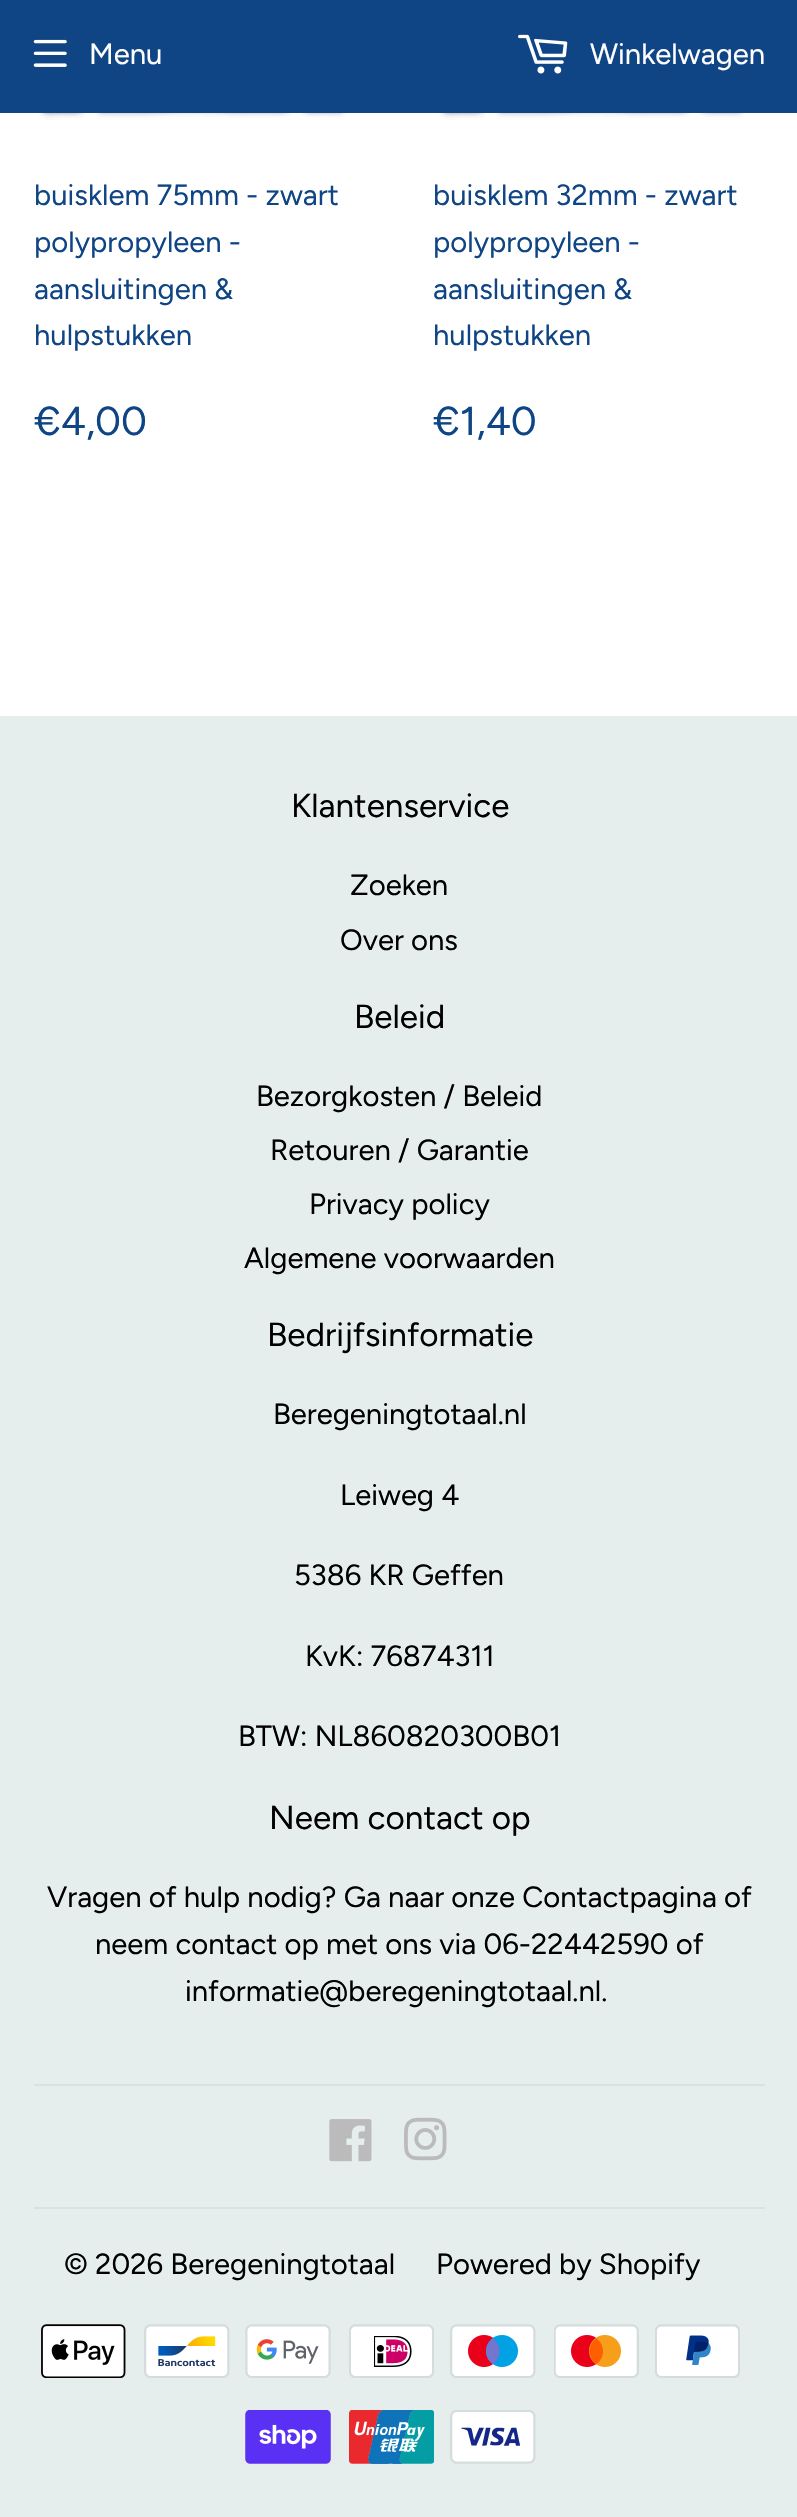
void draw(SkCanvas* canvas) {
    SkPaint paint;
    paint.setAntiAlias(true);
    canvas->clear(0xFFFFFFFF);
    paint.setColor(0xFF0F4584);
    canvas->drawRect(SkRect::MakeXYWH(0, 0, 797, 113), paint);
    canvas->drawImageRect(SkImages::DeferredFromEncodedData(SkData::MakeFromFileName("img1.png")), SkRect::MakeXYWH(33, 39, 34, 28), SkSamplingOptions());
    SkFont font1(fontMgr->matchFamilyStyle("Figtree", SkFontStyle::Normal()), 29.25f);
    font1.setSubpixel(true);
    paint.setColor(0xFFFFFFFF);
    canvas->drawString("Menu", 89, 64, font1, paint);
    canvas->drawImageRect(SkImages::DeferredFromEncodedData(SkData::MakeFromFileName("img2.png")), SkRect::MakeXYWH(518, 34, 50, 40), SkSamplingOptions());
    canvas->drawString("Winkelwagen", 590, 64, font1, paint);
    canvas->drawImageRect(SkImages::DeferredFromEncodedData(SkData::MakeFromFileName("img3.png")), SkRect::MakeXYWH(36, 113, 331, 7), SkSamplingOptions());
    paint.setColor(0xFF0F4584);
    canvas->drawString("buisklem 75mm - zwart", 34, 205, font1, paint);
    canvas->drawString("polypropyleen -", 34, 252, font1, paint);
    canvas->drawString("aansluitingen &", 34, 299, font1, paint);
    canvas->drawString("hulpstukken", 34, 345, font1, paint);
    SkFont font2(fontMgr->matchFamilyStyle("Figtree", SkFontStyle::Normal()), 40.5f);
    font2.setSubpixel(true);
    canvas->drawString("€4,00", 34, 435, font2, paint);
    canvas->drawImageRect(SkImages::DeferredFromEncodedData(SkData::MakeFromFileName("img4.png")), SkRect::MakeXYWH(437, 113, 329, 7), SkSamplingOptions());
    canvas->drawString("buisklem 32mm - zwart", 433, 205, font1, paint);
    canvas->drawString("polypropyleen -", 433, 252, font1, paint);
    canvas->drawString("aansluitingen &", 433, 299, font1, paint);
    canvas->drawString("hulpstukken", 433, 345, font1, paint);
    canvas->drawString("€1,40", 433, 435, font2, paint);
    paint.setColor(0xFFE6EDED);
    canvas->drawRect(SkRect::MakeXYWH(0, 716, 797, 1801), paint);
    SkFont font3(fontMgr->matchFamilyStyle("Figtree", SkFontStyle::Normal()), 33.25f);
    font3.setSubpixel(true);
    paint.setColor(0xFF000000);
    canvas->drawString("Klantenservice", 291, 817, font3, paint);
    canvas->drawString("Zoeken", 350, 895, font1, paint);
    canvas->drawString("Over ons", 340, 950, font1, paint);
    canvas->drawString("Beleid", 354, 1028, font3, paint);
    canvas->drawString("Bezorgkosten / Beleid", 256, 1106, font1, paint);
    canvas->drawString("Retouren / Garantie", 270, 1160, font1, paint);
    canvas->drawString("Privacy policy", 309, 1214, font1, paint);
    canvas->drawString("Algemene voorwaarden", 244, 1268, font1, paint);
    canvas->drawString("Bedrijfsinformatie", 267, 1346, font3, paint);
    canvas->drawString("Beregeningtotaal.nl", 273, 1424, font1, paint);
    canvas->drawString("Leiweg 4", 340, 1505, font1, paint);
    canvas->drawString("5386 KR Geffen", 294, 1585, font1, paint);
    canvas->drawString("KvK: 76874311", 305, 1666, font1, paint);
    canvas->drawString("BTW: NL860820300B01", 238, 1746, font1, paint);
    canvas->drawString("Neem contact op", 269, 1829, font3, paint);
    canvas->drawString("Vragen of hulp nodig? Ga naar onze Contactpagina of", 47, 1907, font1, paint);
    canvas->drawString("neem contact op met ons via 06-22442590 of", 95, 1954, font1, paint);
    canvas->drawString("informatie@beregeningtotaal.nl.", 185, 2001, font1, paint);
    paint.setColor(0xFFD7E2E2);
    canvas->drawRect(SkRect::MakeXYWH(34, 2084, 731, 2), paint);
    canvas->drawImageRect(SkImages::DeferredFromEncodedData(SkData::MakeFromFileName("img5.png")), SkRect::MakeXYWH(329, 2119, 43, 43), SkSamplingOptions());
    canvas->drawImageRect(SkImages::DeferredFromEncodedData(SkData::MakeFromFileName("img6.png")), SkRect::MakeXYWH(404, 2117, 43, 44), SkSamplingOptions());
    canvas->drawRect(SkRect::MakeXYWH(34, 2207, 731, 2), paint);
    paint.setColor(0xFF000000);
    canvas->drawString("© 2026 Beregeningtotaal", 64, 2274, font1, paint);
    canvas->drawString("Powered by Shopify", 436, 2274, font1, paint);
    canvas->drawImageRect(SkImages::DeferredFromEncodedData(SkData::MakeFromFileName("img7.png")), SkRect::MakeXYWH(41, 2324, 85, 54), SkSamplingOptions());
    canvas->drawImageRect(SkImages::DeferredFromEncodedData(SkData::MakeFromFileName("img8.png")), SkRect::MakeXYWH(144, 2324, 86, 54), SkSamplingOptions());
    canvas->drawImageRect(SkImages::DeferredFromEncodedData(SkData::MakeFromFileName("img9.png")), SkRect::MakeXYWH(245, 2324, 86, 54), SkSamplingOptions());
    canvas->drawImageRect(SkImages::DeferredFromEncodedData(SkData::MakeFromFileName("img10.png")), SkRect::MakeXYWH(349, 2324, 85, 54), SkSamplingOptions());
    canvas->drawImageRect(SkImages::DeferredFromEncodedData(SkData::MakeFromFileName("img11.png")), SkRect::MakeXYWH(450, 2324, 86, 54), SkSamplingOptions());
    canvas->drawImageRect(SkImages::DeferredFromEncodedData(SkData::MakeFromFileName("img12.png")), SkRect::MakeXYWH(554, 2324, 85, 54), SkSamplingOptions());
    canvas->drawImageRect(SkImages::DeferredFromEncodedData(SkData::MakeFromFileName("img13.png")), SkRect::MakeXYWH(655, 2324, 85, 54), SkSamplingOptions());
    canvas->drawImageRect(SkImages::DeferredFromEncodedData(SkData::MakeFromFileName("img14.png")), SkRect::MakeXYWH(245, 2410, 86, 54), SkSamplingOptions());
    canvas->drawImageRect(SkImages::DeferredFromEncodedData(SkData::MakeFromFileName("img15.png")), SkRect::MakeXYWH(349, 2410, 85, 54), SkSamplingOptions());
    canvas->drawImageRect(SkImages::DeferredFromEncodedData(SkData::MakeFromFileName("img16.png")), SkRect::MakeXYWH(450, 2410, 86, 54), SkSamplingOptions());
}
